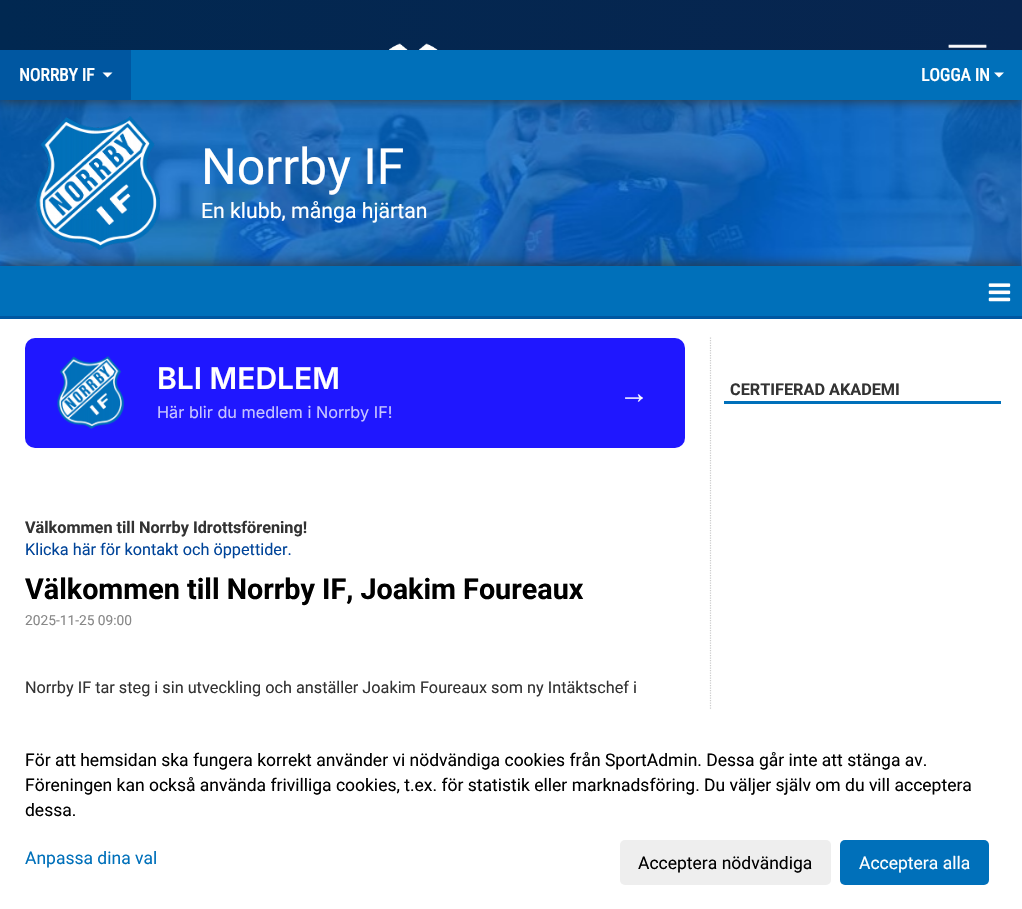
void draw(SkCanvas* canvas) {
    SkPaint paint;
    paint.setAntiAlias(true);
    canvas->clear(0xFFFFFFFF);
    canvas->drawImageRect(SkImages::DeferredFromEncodedData(SkData::MakeFromFileName("img1.png")), SkRect::MakeXYWH(0, 100, 1022, 166), SkSamplingOptions());
    paint.setColor(0xFF333333);
    paint.setMaskFilter(SkMaskFilter::MakeBlur(kNormal_SkBlurStyle, 6));
    canvas->drawRect(SkRect::MakeXYWH(0, 50, 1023, 50), paint);
    paint.setMaskFilter(nullptr);
    canvas->drawImageRect(SkImages::DeferredFromEncodedData(SkData::MakeFromFileName("img2.png")), SkRect::MakeXYWH(0, 0, 1022, 50), SkSamplingOptions());
    paint.setColor(0xFF0070BA);
    canvas->drawRect(SkRect::MakeXYWH(131, 50, 891, 50), paint);
    paint.setColor(0xFF0057A1);
    canvas->drawRect(SkRect::MakeXYWH(0, 50, 131, 50), paint);
    SkFont font1(fontMgr->matchFamilyStyle("Roboto Condensed", SkFontStyle::Bold()), 17.5f);
    font1.setSubpixel(true);
    paint.setColor(0xFFFFFFFF);
    canvas->drawString("NORRBY IF", 19, 81, font1, paint);
    canvas->drawPath(SkPathBuilder().moveTo(102.5f, 72.5f).lineTo(112.5f, 72.5f).lineTo(107.5f, 77.5f).close().detach(), paint);
    canvas->drawString("LOGGA IN", 921, 81, font1, paint);
    canvas->drawPath(SkPathBuilder().moveTo(994, 72.5f).lineTo(1004, 72.5f).lineTo(999, 77.5f).close().detach(), paint);
    paint.setColor(0xFF333333);
    paint.setMaskFilter(SkMaskFilter::MakeBlur(kNormal_SkBlurStyle, 6));
    canvas->drawRect(SkRect::MakeXYWH(0, 266, 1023, 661), paint);
    paint.setMaskFilter(nullptr);
    canvas->drawImageRect(SkImages::DeferredFromEncodedData(SkData::MakeFromFileName("img3.png")), SkRect::MakeXYWH(36, 116, 124, 134), SkSamplingOptions());
    SkFont font2(fontMgr->matchFamilyStyle("Roboto", SkFontStyle::Normal()), 50);
    font2.setSubpixel(true);
    paint.setColor(0xFFFFFFFF);
    canvas->drawString("Norrby IF", 201, 184, font2, paint);
    SkFont font3(fontMgr->matchFamilyStyle("Roboto", SkFontStyle::Normal()), 21.25f);
    font3.setSubpixel(true);
    canvas->drawString("En klubb, många hjärtan", 201, 218, font3, paint);
    canvas->drawRect(SkRect::MakeXYWH(0, 319, 1022, 391), paint);
    paint.setColor(0xFF0070BA);
    canvas->drawRect(SkRect::MakeXYWH(0, 266, 1022, 50), paint);
    paint.setColor(0xFF0057A1);
    canvas->drawRect(SkRect::MakeXYWH(0, 316, 1022, 3), paint);
    canvas->drawImageRect(SkImages::DeferredFromEncodedData(SkData::MakeFromFileName("img4.png")), SkRect::MakeXYWH(988, 283, 23, 19), SkSamplingOptions());
    paint.setColor(0xFF1F17FF);
    canvas->drawRoundRect(SkRect::MakeXYWH(25, 338, 660, 110), 10, 10, paint);
    canvas->drawImageRect(SkImages::DeferredFromEncodedData(SkData::MakeFromFileName("img5.png")), SkRect::MakeXYWH(57, 356, 67, 73), SkSamplingOptions());
    SkFont font4(fontMgr->matchFamilyStyle("Inter", SkFontStyle(600, SkFontStyle::kNormal_Width, SkFontStyle::kUpright_Slant)), 30);
    font4.setSubpixel(true);
    paint.setColor(0xFFFFFFFF);
    canvas->drawString("BLI MEDLEM", 157, 389, font4, paint);
    SkFont font5(fontMgr->matchFamilyStyle("Inter", SkFontStyle::Normal()), 16.25f);
    font5.setSubpixel(true);
    paint.setColor(0xFFC7C5FF);
    canvas->drawString("Här blir du medlem i Norrby IF!", 157, 418, font5, paint);
    SkFont font6(fontMgr->matchFamilyStyle("Liberation Sans", SkFontStyle::Normal()), 30);
    font6.setSubpixel(true);
    paint.setColor(0xFFFFFFFF);
    canvas->drawString("→", 619, 403, font6, paint);
    SkFont font7(fontMgr->matchFamilyStyle("Roboto", SkFontStyle::Bold()), 16.25f);
    font7.setSubpixel(true);
    paint.setColor(0xFF333333);
    canvas->drawString("Välkommen till Norrby Idrottsförening!", 25, 533, font7, paint);
    SkFont font8(fontMgr->matchFamilyStyle("Roboto", SkFontStyle::Normal()), 16.25f);
    font8.setSubpixel(true);
    paint.setColor(0xFF004499);
    canvas->drawString("Klicka här för kontakt och öppettider.", 25, 555, font8, paint);
    SkFont font9(fontMgr->matchFamilyStyle("Roboto", SkFontStyle::Bold()), 28.75f);
    font9.setSubpixel(true);
    paint.setColor(0xFF000000);
    canvas->drawString("Välkommen till Norrby IF, Joakim Foureaux", 25, 599, font9, paint);
    SkFont font10(fontMgr->matchFamilyStyle("Roboto", SkFontStyle::Normal()), 13.75f);
    font10.setSubpixel(true);
    paint.setColor(0xFF888888);
    canvas->drawString("2025-11-25 09:00", 25, 625, font10, paint);
    paint.setColor(0xFF333333);
    canvas->drawString("Norrby IF tar steg i sin utveckling och anställer Joakim Foureaux som ny Intäktschef i", 25, 693, font8, paint);
    paint.setStyle(SkPaint::kStroke_Style);
    paint.setStrokeWidth(1.2f);
    paint.setColor(0xFFCCCCCC);
    paint.setPathEffect(SkDashPathEffect::Make({{1.25f, 1.25f}}, 0));
    canvas->drawPath(SkPathBuilder().moveTo(710.5f, 337.5f).lineTo(710.5f, 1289).detach(), paint);
    paint.setPathEffect(nullptr);
    paint.setStyle(SkPaint::kFill_Style);
    paint.setColor(0xFF0070BA);
    canvas->drawRect(SkRect::MakeXYWH(724, 401, 277, 3), paint);
    paint.setColor(0xFF333333);
    canvas->drawString("CERTIFERAD AKADEMI", 730, 395, font7, paint);
    paint.setColor(0xFFFFFFFF);
    canvas->drawRect(SkRect::MakeXYWH(0, 710, 1022, 199), paint);
    SkFont font11(fontMgr->matchFamilyStyle("Roboto", SkFontStyle::Normal()), 17.5f);
    font11.setSubpixel(true);
    paint.setColor(0xFF000000);
    canvas->drawString("För att hemsidan ska fungera korrekt använder vi nödvändiga cookies från SportAdmin. Dessa går inte att stänga av.", 25, 766, font11, paint);
    canvas->drawString("Föreningen kan också använda frivilliga cookies, t.ex. för statistik eller marknadsföring. Du väljer själv om du vill acceptera", 25, 791, font11, paint);
    canvas->drawString("dessa.", 25, 816, font11, paint);
    paint.setColor(0xFF0070BA);
    canvas->drawString("Anpassa dina val", 25, 864, font11, paint);
    paint.setColor(0xFFEEEEEE);
    canvas->drawRoundRect(SkRect::MakeXYWH(620, 840, 211, 45), 5, 5, paint);
    paint.setColor(0xFF000000);
    canvas->drawString("Acceptera nödvändiga", 638, 869, font11, paint);
    paint.setColor(0xFF0070BA);
    canvas->drawRoundRect(SkRect::MakeXYWH(840, 840, 149, 45), 5, 5, paint);
    paint.setColor(0xFFFFFFFF);
    canvas->drawString("Acceptera alla", 859, 869, font11, paint);
}
